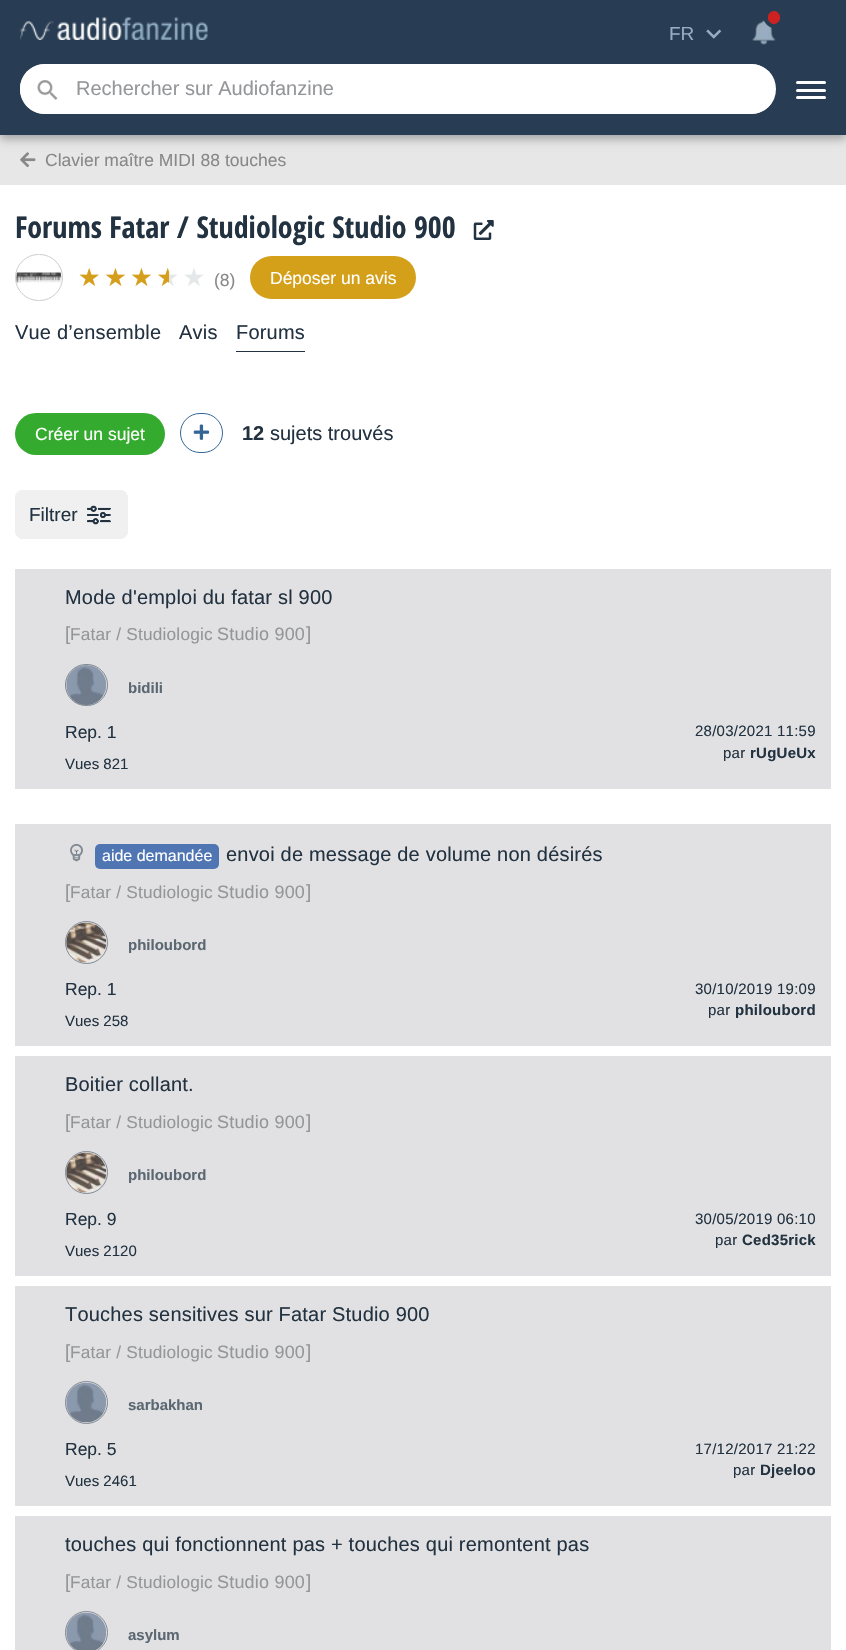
void draw(SkCanvas* canvas) {
    SkPaint paint;
    paint.setAntiAlias(true);
    auto spacedText = [&](const char* s, float x, float y, const SkFont& font, const SkPaint& ink, float letter, float word) {
        std::vector<SkGlyphID> glyphs(font.countText(s, strlen(s), SkTextEncoding::kUTF8));
        std::vector<float> xs(glyphs.size());
        font.textToGlyphs(s, strlen(s), SkTextEncoding::kUTF8, glyphs);
        font.getXPos(glyphs, xs, x);
        float extra = 0;
        for (size_t i = 0; i < glyphs.size(); i++) {
            xs[i] += extra;
            extra += letter + word * (glyphs[i] == font.unicharToGlyph(' '));
        }
        canvas->drawTextBlob(SkTextBlob::MakeFromPosHGlyphs(glyphs, xs, y, font), 0, 0, ink);
    };
    canvas->clear(0xFFFFFFFF);
    paint.setColor(0xFFE7E7E7);
    canvas->drawRect(SkRect::MakeXYWH(0, 135, 846, 50), paint);
    canvas->drawImageRect(SkImages::DeferredFromEncodedData(SkData::MakeFromFileName("img5.png")), SkRect::MakeXYWH(20, 152, 16, 16), SkSamplingOptions());
    paint.setColor(0x4D000000);
    paint.setMaskFilter(SkMaskFilter::MakeBlur(kNormal_SkBlurStyle, 4.5f));
    canvas->drawRect(SkRect::MakeXYWH(0, 4, 846, 135), paint);
    paint.setMaskFilter(nullptr);
    paint.setColor(0xFF283D53);
    canvas->drawRect(SkRect::MakeXYWH(0, 0, 846, 135), paint);
    canvas->drawImageRect(SkImages::DeferredFromEncodedData(SkData::MakeFromFileName("img1.png")), SkRect::MakeXYWH(20, 17, 188, 23), SkSamplingOptions());
    canvas->drawImageRect(SkImages::DeferredFromEncodedData(SkData::MakeFromFileName("img2.png")), SkRect::MakeXYWH(752, 20, 24, 25), SkSamplingOptions());
    paint.setStyle(SkPaint::kStroke_Style);
    paint.setStrokeWidth(4);
    canvas->drawCircle(774, 18, 8, paint);
    paint.setStyle(SkPaint::kFill_Style);
    paint.setColor(0xFFD02121);
    canvas->drawRoundRect(SkRect::MakeXYWH(768.5f, 11.5f, 11, 12), 5.5f, 5.5f, paint);
    paint.setStyle(SkPaint::kStroke_Style);
    paint.setStrokeWidth(1);
    canvas->drawRoundRect(SkRect::MakeXYWH(768.5f, 11.5f, 11, 12), 5.5f, 5.5f, paint);
    canvas->drawImageRect(SkImages::DeferredFromEncodedData(SkData::MakeFromFileName("img3.png")), SkRect::MakeXYWH(706, 29, 16, 10), SkSamplingOptions());
    SkFont font1(fontMgr->matchFamilyStyle("Liberation Sans", SkFontStyle::Normal()), 19);
    font1.setSubpixel(true);
    paint.setStyle(SkPaint::kFill_Style);
    paint.setColor(0xFF97ADC4);
    canvas->drawString("FR", 669, 40, font1, paint);
    paint.setColor(0xFFFFFFFF);
    canvas->drawRoundRect(SkRect::MakeXYWH(20, 64, 756, 50), 25, 25, paint);
    canvas->drawPath(SkPathBuilder(SkPathFillType::kEvenOdd).moveTo(45, 64).lineTo(751, 64).cubicTo(765, 64, 776, 75, 776, 89).cubicTo(776, 103, 765, 114, 751, 114).lineTo(45, 114).cubicTo(31, 114, 20, 103, 20, 89).cubicTo(20, 75, 31, 64, 45, 64).close().moveTo(45, 65).lineTo(751, 65).cubicTo(765, 65, 776, 76, 776, 89).cubicTo(776, 102, 765, 112, 751, 112).lineTo(45, 112).cubicTo(32, 112, 21, 102, 21, 89).cubicTo(21, 76, 32, 65, 45, 65).close().detach(), paint);
    canvas->drawImageRect(SkImages::DeferredFromEncodedData(SkData::MakeFromFileName("img4.png")), SkRect::MakeXYWH(37, 80, 21, 20), SkSamplingOptions());
    SkFont font2(fontMgr->matchFamilyStyle("Liberation Sans", SkFontStyle::Normal()), 20);
    font2.setSubpixel(true);
    paint.setColor(0xFF949699);
    canvas->drawString("Rechercher sur Audiofanzine", 76, 95, font2, paint);
    paint.setColor(0xFFFFFFFF);
    canvas->drawRoundRect(SkRect::MakeXYWH(796, 96, 30, 3), 1.5f, 1.5f, paint);
    canvas->drawRoundRect(SkRect::MakeXYWH(796, 81, 30, 3), 1.5f, 1.5f, paint);
    canvas->drawRoundRect(SkRect::MakeXYWH(796, 89, 30, 3), 1.5f, 1.5f, paint);
    SkFont font3(fontMgr->matchFamilyStyle("Liberation Sans", SkFontStyle::Normal()), 17.5f);
    font3.setSubpixel(true);
    paint.setColor(0xFF888888);
    canvas->drawString("Clavier maître MIDI 88 touches", 45, 166, font3, paint);
    SkFont font4(fontMgr->matchFamilyStyle("Open Sans Condensed", SkFontStyle::Bold()), 30);
    font4.setSubpixel(true);
    paint.setColor(0xFF223240);
    canvas->drawString("Forums Fatar / Studiologic Studio 900", 15, 238, font4, paint);
    canvas->drawImageRect(SkImages::DeferredFromEncodedData(SkData::MakeFromFileName("img6.png")), SkRect::MakeXYWH(473, 220, 21, 20), SkSamplingOptions());
    paint.setStyle(SkPaint::kStroke_Style);
    paint.setColor(0xFFCDCDCD);
    canvas->drawRoundRect(SkRect::MakeXYWH(15.5f, 254.5f, 47, 46), 23, 23, paint);
    canvas->drawImageRect(SkImages::DeferredFromEncodedData(SkData::MakeFromFileName("img7.png")), SkRect::MakeXYWH(16, 272, 46, 11), SkSamplingOptions());
    SkFont font5(fontMgr->matchFamilyStyle("DejaVu Sans", SkFontStyle::Normal()), 25);
    font5.setSubpixel(true);
    paint.setStyle(SkPaint::kFill_Style);
    {
        const SkColor colors[] = {0xFFD59F1B, 0xFFE5E8E9};
        const float stops[] = {0.7f, 0.7f};
        const SkPoint ends[] = {{78, 277}, {208, 277}};
        paint.setShader(SkGradientShader::MakeLinear(ends, colors, stops, 2, SkTileMode::kClamp));
        paint.setAlpha(255);
    }
    spacedText("★★★★★", 78, 286, font5, paint, 3.75f, 0);
    paint.setShader(nullptr);
    paint.setColor(0xFF888888);
    canvas->drawString("(8)", 214, 286, font3, paint);
    paint.setColor(0xFFD49F19);
    canvas->drawRoundRect(SkRect::MakeXYWH(250, 256, 166, 43), 21.5f, 21.5f, paint);
    paint.setColor(0xFFFFFFFF);
    canvas->drawString("Déposer un avis", 270, 284, font3, paint);
    paint.setColor(0xFF223240);
    spacedText("Vue d’ensemble", 15, 339, font2, paint, 0.2f, 0);
    spacedText("Avis", 179, 339, font2, paint, 0.2f, 0);
    canvas->drawRect(SkRect::MakeXYWH(236, 351, 69, 1), paint);
    spacedText("Forums", 236, 339, font2, paint, 0.2f, 0);
    paint.setColor(0xFF34AB2E);
    canvas->drawRoundRect(SkRect::MakeXYWH(15, 413, 150, 42), 21, 21, paint);
    paint.setColor(0xFFFFFFFF);
    canvas->drawString("Créer un sujet", 35, 440, font3, paint);
    paint.setStyle(SkPaint::kStroke_Style);
    paint.setColor(0xFF336697);
    canvas->drawRoundRect(SkRect::MakeXYWH(180.5f, 413.5f, 42, 39), 19.5f, 19.5f, paint);
    canvas->drawImageRect(SkImages::DeferredFromEncodedData(SkData::MakeFromFileName("img8.png")), SkRect::MakeXYWH(193, 424, 17, 16), SkSamplingOptions());
    SkFont font6(fontMgr->matchFamilyStyle("Liberation Sans", SkFontStyle::Bold()), 20);
    font6.setSubpixel(true);
    paint.setStyle(SkPaint::kFill_Style);
    paint.setColor(0xFF223240);
    canvas->drawString("12", 242, 440, font6, paint);
    canvas->drawString("sujets trouvés", 270, 440, font2, paint);
    paint.setColor(0xFFF0F0F0);
    canvas->drawRoundRect(SkRect::MakeXYWH(15, 490, 113, 49), 8, 8, paint);
    canvas->drawImageRect(SkImages::DeferredFromEncodedData(SkData::MakeFromFileName("img9.png")), SkRect::MakeXYWH(87, 505, 24, 20), SkSamplingOptions());
    paint.setStyle(SkPaint::kStroke_Style);
    canvas->drawRoundRect(SkRect::MakeXYWH(15.5f, 490.5f, 112, 48), 7.5f, 7.5f, paint);
    paint.setStyle(SkPaint::kFill_Style);
    paint.setColor(0xFF223240);
    canvas->drawString("Filtrer", 29, 521, font1, paint);
    paint.setColor(0xFFE1E1E3);
    canvas->drawRect(SkRect::MakeXYWH(15, 569, 816, 220), paint);
    paint.setColor(0xFF223240);
    spacedText("Mode d'emploi du fatar sl 900", 65, 604, font2, paint, 0.2f, 0);
    paint.setColor(0xFF949699);
    canvas->drawString("[", 65, 640, font1, paint);
    SkFont font7(fontMgr->matchFamilyStyle("Liberation Sans", SkFontStyle::Normal()), 17.25f);
    font7.setSubpixel(true);
    spacedText("Fatar / Studiologic", 70, 640, font7, paint, 0.2f, 0);
    SkFont font8(fontMgr->matchFamilyStyle("Liberation Sans", SkFontStyle::Normal()), 18);
    font8.setSubpixel(true);
    spacedText("Studio 900", 217, 640, font8, paint, 0.2f, 0);
    canvas->drawString("]", 306, 640, font1, paint);
    paint.setStyle(SkPaint::kStroke_Style);
    paint.setColor(0xFF818992);
    canvas->drawRoundRect(SkRect::MakeXYWH(65.5f, 664.5f, 42, 41), 20.5f, 20.5f, paint);
    canvas->drawImageRect(SkImages::DeferredFromEncodedData(SkData::MakeFromFileName("img10.png")), SkRect::MakeXYWH(66, 665, 41, 40), SkSamplingOptions());
    SkFont font9(fontMgr->matchFamilyStyle("Liberation Sans", SkFontStyle::Bold()), 15);
    font9.setSubpixel(true);
    paint.setStyle(SkPaint::kFill_Style);
    paint.setColor(0xFF5B6771);
    canvas->drawString("bidili", 128, 693, font9, paint);
    paint.setColor(0xFF223240);
    canvas->drawString("Rep. 1", 65, 738, font3, paint);
    SkFont font10(fontMgr->matchFamilyStyle("Liberation Sans", SkFontStyle::Normal()), 15);
    font10.setSubpixel(true);
    canvas->drawString("Vues 821", 65, 769, font10, paint);
    spacedText("28/03/2021 11:59", 695, 736, font10, paint, 0.25f, 0);
    spacedText("par", 723, 758, font10, paint, 0.25f, 0);
    spacedText("rUgUeUx", 750, 758, font9, paint, 0.25f, 0);
    paint.setColor(0xFFE1E1E3);
    canvas->drawRect(SkRect::MakeXYWH(15, 824, 816, 222), paint);
    canvas->drawImageRect(SkImages::DeferredFromEncodedData(SkData::MakeFromFileName("img11.png")), SkRect::MakeXYWH(70, 843, 13, 19), SkSamplingOptions());
    paint.setColor(0xFF5075B3);
    canvas->drawRoundRect(SkRect::MakeXYWH(95, 844, 124, 25), 5, 5, paint);
    SkFont font11(fontMgr->matchFamilyStyle("Liberation Sans", SkFontStyle::Normal()), 16);
    font11.setSubpixel(true);
    paint.setColor(0xFFFFFFFF);
    canvas->drawString("aide demandée", 102, 861, font11, paint);
    paint.setColor(0xFF223240);
    spacedText("envoi de message de volume non désirés", 226, 861, font2, paint, 0.2f, 0);
    paint.setColor(0xFF949699);
    canvas->drawString("[", 65, 898, font1, paint);
    spacedText("Fatar / Studiologic", 70, 898, font7, paint, 0.2f, 0);
    spacedText("Studio 900", 217, 898, font8, paint, 0.2f, 0);
    canvas->drawString("]", 306, 898, font1, paint);
    paint.setStyle(SkPaint::kStroke_Style);
    paint.setColor(0xFF818992);
    canvas->drawCircle(86.5f, 942.5f, 21, paint);
    canvas->drawImageRect(SkImages::DeferredFromEncodedData(SkData::MakeFromFileName("img12.png")), SkRect::MakeXYWH(66, 922, 41, 41), SkSamplingOptions());
    paint.setStyle(SkPaint::kFill_Style);
    paint.setColor(0xFF5B6771);
    canvas->drawString("philoubord", 128, 950, font9, paint);
    paint.setColor(0xFF223240);
    canvas->drawString("Rep. 1", 65, 995, font3, paint);
    canvas->drawString("Vues 258", 65, 1026, font10, paint);
    spacedText("30/10/2019 19:09", 695, 994, font10, paint, 0.25f, 0);
    spacedText("par", 708, 1015, font10, paint, 0.25f, 0);
    spacedText("philoubord", 735, 1015, font9, paint, 0.25f, 0);
    paint.setColor(0xFFE1E1E3);
    canvas->drawRect(SkRect::MakeXYWH(15, 1056, 816, 220), paint);
    paint.setColor(0xFF223240);
    spacedText("Boitier collant.", 65, 1091, font2, paint, 0.2f, 0);
    paint.setColor(0xFF949699);
    canvas->drawString("[", 65, 1128, font1, paint);
    spacedText("Fatar / Studiologic", 70, 1128, font7, paint, 0.2f, 0);
    spacedText("Studio 900", 217, 1128, font8, paint, 0.2f, 0);
    canvas->drawString("]", 306, 1128, font1, paint);
    paint.setStyle(SkPaint::kStroke_Style);
    paint.setColor(0xFF818992);
    canvas->drawCircle(86.5f, 1172.5f, 21, paint);
    canvas->drawImageRect(SkImages::DeferredFromEncodedData(SkData::MakeFromFileName("img13.png")), SkRect::MakeXYWH(66, 1152, 41, 41), SkSamplingOptions());
    paint.setStyle(SkPaint::kFill_Style);
    paint.setColor(0xFF5B6771);
    canvas->drawString("philoubord", 128, 1180, font9, paint);
    paint.setColor(0xFF223240);
    canvas->drawString("Rep. 9", 65, 1225, font3, paint);
    canvas->drawString("Vues 2120", 65, 1256, font10, paint);
    spacedText("30/05/2019 06:10", 695, 1224, font10, paint, 0.25f, 0);
    spacedText("par", 715, 1245, font10, paint, 0.25f, 0);
    spacedText("Ced35rick", 742, 1245, font9, paint, 0.25f, 0);
    paint.setColor(0xFFE1E1E3);
    canvas->drawRect(SkRect::MakeXYWH(15, 1286, 816, 220), paint);
    paint.setColor(0xFF223240);
    spacedText("Touches sensitives sur Fatar Studio 900", 65, 1321, font2, paint, 0.2f, 0);
    paint.setColor(0xFF949699);
    canvas->drawString("[", 65, 1358, font1, paint);
    spacedText("Fatar / Studiologic", 70, 1358, font7, paint, 0.2f, 0);
    spacedText("Studio 900", 217, 1358, font8, paint, 0.2f, 0);
    canvas->drawString("]", 306, 1358, font1, paint);
    paint.setStyle(SkPaint::kStroke_Style);
    paint.setColor(0xFF818992);
    canvas->drawCircle(86.5f, 1402.5f, 21, paint);
    canvas->drawImageRect(SkImages::DeferredFromEncodedData(SkData::MakeFromFileName("img14.png")), SkRect::MakeXYWH(66, 1382, 41, 41), SkSamplingOptions());
    paint.setStyle(SkPaint::kFill_Style);
    paint.setColor(0xFF5B6771);
    canvas->drawString("sarbakhan", 128, 1410, font9, paint);
    paint.setColor(0xFF223240);
    canvas->drawString("Rep. 5", 65, 1455, font3, paint);
    canvas->drawString("Vues 2461", 65, 1486, font10, paint);
    spacedText("17/12/2017 21:22", 695, 1454, font10, paint, 0.25f, 0);
    spacedText("par", 733, 1475, font10, paint, 0.25f, 0);
    spacedText("Djeeloo", 760, 1475, font9, paint, 0.25f, 0);
    paint.setColor(0xFFE1E1E3);
    canvas->drawRect(SkRect::MakeXYWH(15, 1516, 816, 134), paint);
    paint.setColor(0xFF223240);
    spacedText("touches qui fonctionnent pas + touches qui remontent pas", 65, 1551, font2, paint, 0.2f, 0);
    paint.setColor(0xFF949699);
    canvas->drawString("[", 65, 1588, font1, paint);
    spacedText("Fatar / Studiologic", 70, 1588, font7, paint, 0.2f, 0);
    spacedText("Studio 900", 217, 1588, font8, paint, 0.2f, 0);
    canvas->drawString("]", 306, 1588, font1, paint);
    paint.setStyle(SkPaint::kStroke_Style);
    paint.setColor(0xFF818992);
    canvas->drawCircle(86.5f, 1632.5f, 21, paint);
    canvas->drawImageRect(SkImages::DeferredFromEncodedData(SkData::MakeFromFileName("img15.png")), SkRect::MakeXYWH(66, 1612, 41, 38), SkSamplingOptions());
    paint.setStyle(SkPaint::kFill_Style);
    paint.setColor(0xFF5B6771);
    canvas->drawString("asylum", 128, 1640, font9, paint);
}
